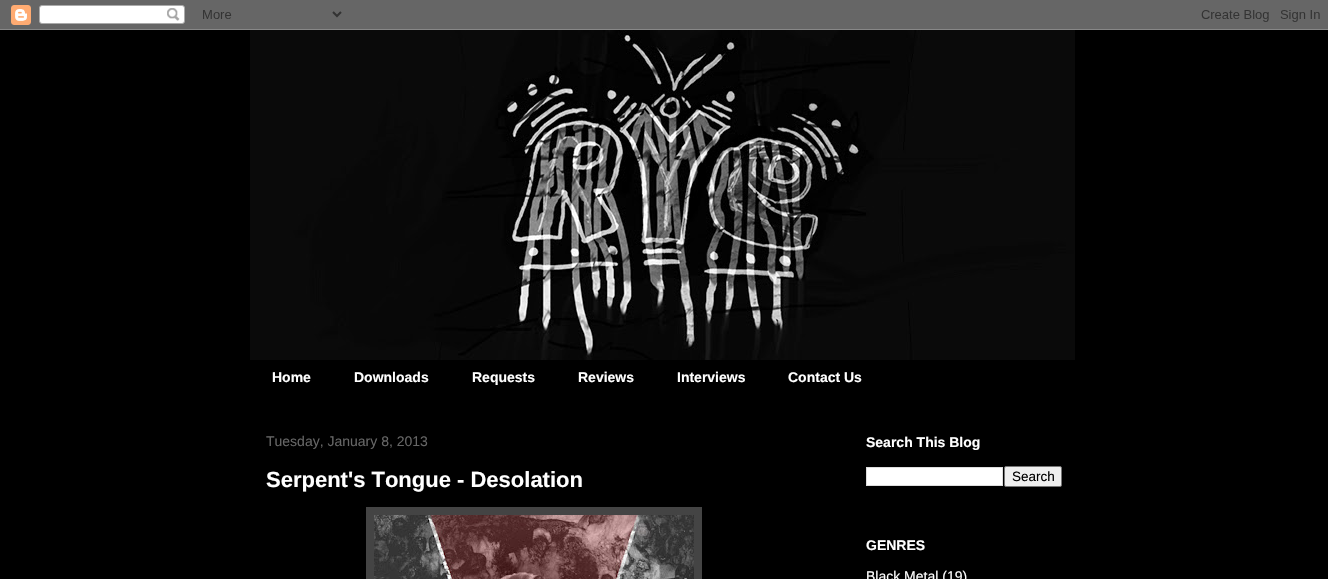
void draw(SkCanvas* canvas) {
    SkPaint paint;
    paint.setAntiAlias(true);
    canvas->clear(0xFF000000);
    canvas->drawImageRect(SkImages::DeferredFromEncodedData(SkData::MakeFromFileName("img1.png")), SkRect::MakeXYWH(0, 0, 1328, 30), SkSamplingOptions());
    canvas->drawImageRect(SkImages::DeferredFromEncodedData(SkData::MakeFromFileName("img2.png")), SkRect::MakeXYWH(250, 30, 825, 330), SkSamplingOptions());
    SkFont font1(fontMgr->matchFamilyStyle("Liberation Sans", SkFontStyle::Bold()), 14);
    font1.setSubpixel(true);
    paint.setColor(0xFFFFFFFF);
    canvas->drawString("Home", 272, 382, font1, paint);
    canvas->drawString("Downloads", 354, 382, font1, paint);
    canvas->drawString("Requests", 472, 382, font1, paint);
    canvas->drawString("Reviews", 578, 382, font1, paint);
    canvas->drawString("Interviews", 677, 382, font1, paint);
    canvas->drawString("Contact Us", 788, 382, font1, paint);
    SkFont font2(fontMgr->matchFamilyStyle("Liberation Sans", SkFontStyle::Normal()), 14);
    font2.setSubpixel(true);
    paint.setColor(0xFF666666);
    canvas->drawString("Tuesday, January 8, 2013", 266, 446, font2, paint);
    SkFont font3(fontMgr->matchFamilyStyle("Liberation Sans", SkFontStyle::Bold()), 22);
    font3.setSubpixel(true);
    paint.setColor(0xFFFFFFFF);
    canvas->drawString("Serpent's Tongue - Desolation", 266, 487, font3, paint);
    paint.setColor(0xFF444444);
    canvas->drawRect(SkRect::MakeXYWH(366, 507, 336, 72), paint);
    canvas->drawImageRect(SkImages::DeferredFromEncodedData(SkData::MakeFromFileName("img3.png")), SkRect::MakeXYWH(374, 515, 320, 64), SkSamplingOptions());
    paint.setColor(0xFFFFFFFF);
    canvas->drawString("Search This Blog", 866, 447, font1, paint);
    canvas->drawRect(SkRect::MakeXYWH(866.5f, 467.5f, 136, 18), paint);
    paint.setStyle(SkPaint::kStroke_Style);
    paint.setStrokeWidth(1);
    paint.setColor(0xFFDDDDDD);
    canvas->drawRect(SkRect::MakeXYWH(866.5f, 467.5f, 136, 18), paint);
    paint.setStyle(SkPaint::kFill_Style);
    paint.setColor(0xFFEFEFEF);
    canvas->drawRoundRect(SkRect::MakeXYWH(1004.5f, 466.5f, 57, 20), 1.5f, 1.5f, paint);
    paint.setStyle(SkPaint::kStroke_Style);
    paint.setColor(0xFF767676);
    canvas->drawRoundRect(SkRect::MakeXYWH(1004.5f, 466.5f, 57, 20), 1.5f, 1.5f, paint);
    SkFont font4(fontMgr->matchFamilyStyle("Liberation Sans", SkFontStyle::Normal()), 13.5f);
    font4.setSubpixel(true);
    paint.setStyle(SkPaint::kFill_Style);
    paint.setColor(0xFF000000);
    canvas->drawString("Search", 1012, 481, font4, paint);
    paint.setColor(0xFFFFFFFF);
    canvas->drawString("GENRES", 866, 550, font1, paint);
    canvas->drawString("Black Metal (19)", 866, 581, font2, paint);
}
